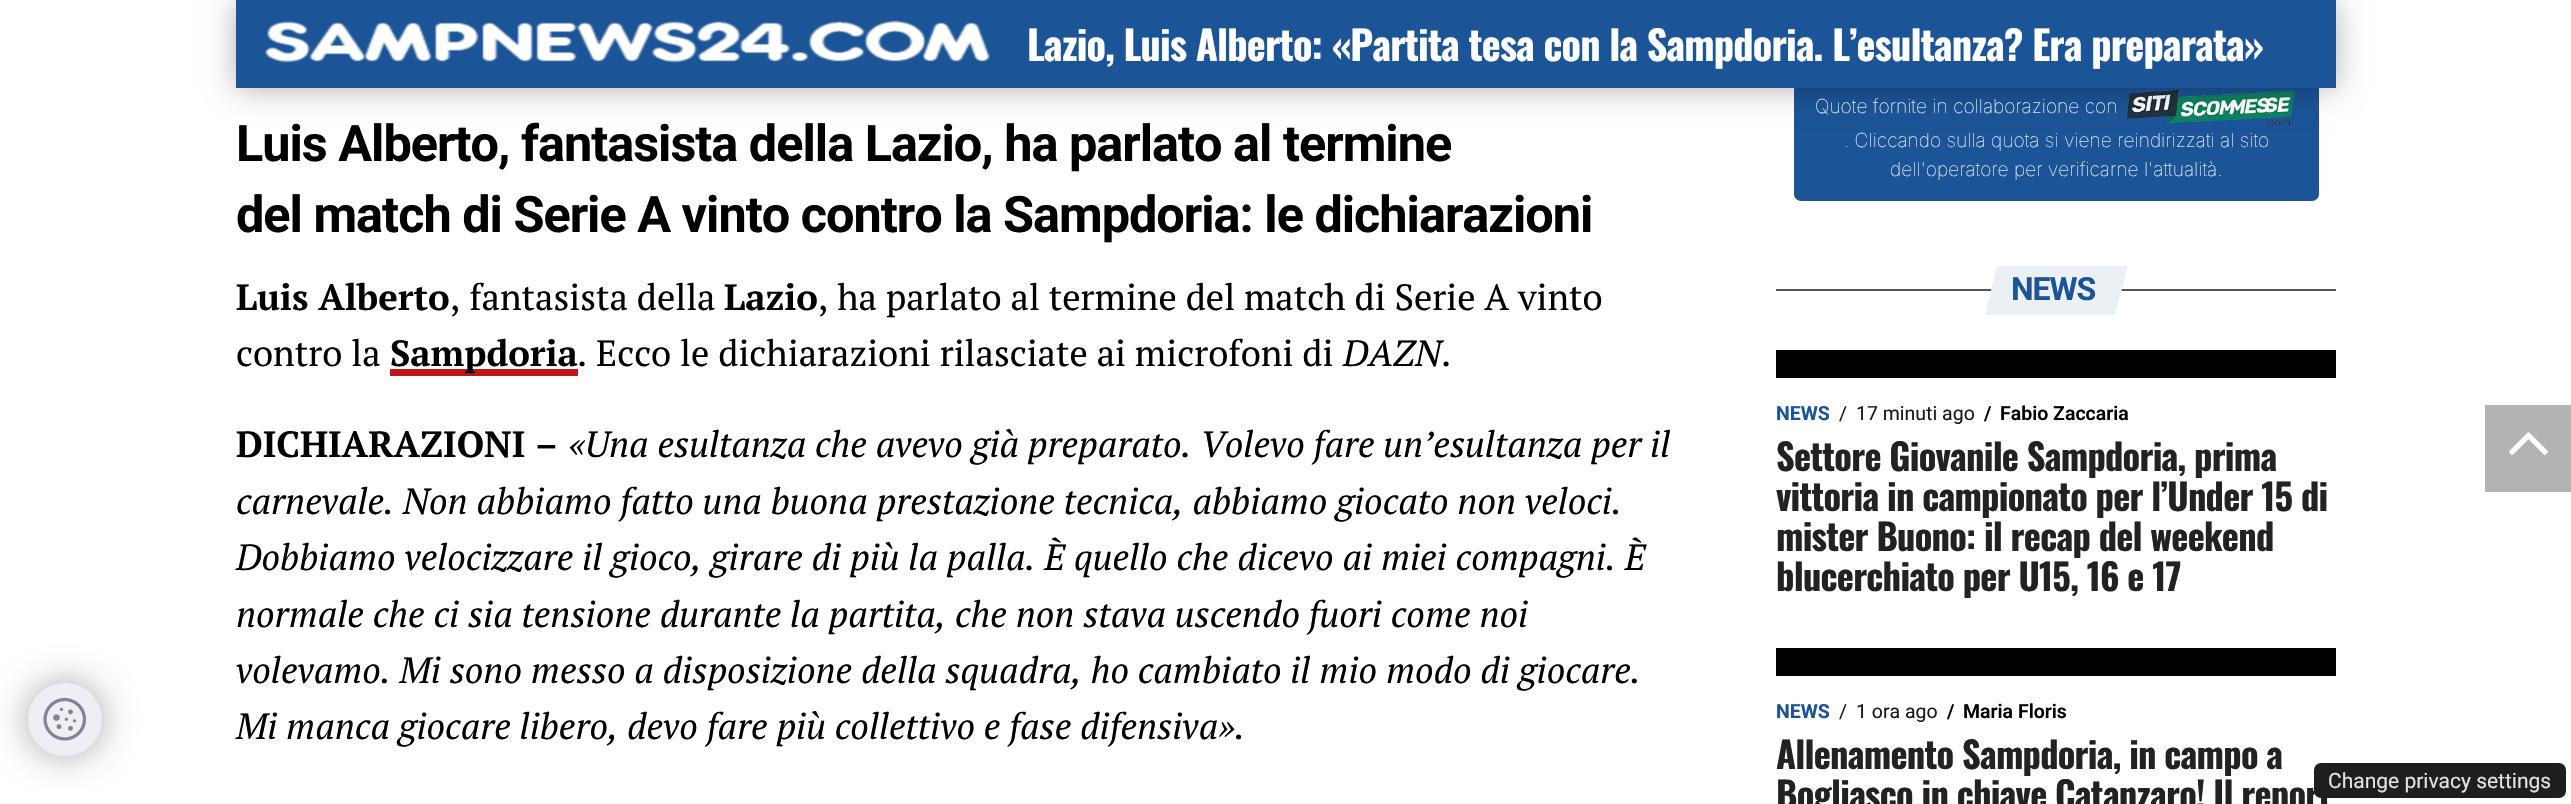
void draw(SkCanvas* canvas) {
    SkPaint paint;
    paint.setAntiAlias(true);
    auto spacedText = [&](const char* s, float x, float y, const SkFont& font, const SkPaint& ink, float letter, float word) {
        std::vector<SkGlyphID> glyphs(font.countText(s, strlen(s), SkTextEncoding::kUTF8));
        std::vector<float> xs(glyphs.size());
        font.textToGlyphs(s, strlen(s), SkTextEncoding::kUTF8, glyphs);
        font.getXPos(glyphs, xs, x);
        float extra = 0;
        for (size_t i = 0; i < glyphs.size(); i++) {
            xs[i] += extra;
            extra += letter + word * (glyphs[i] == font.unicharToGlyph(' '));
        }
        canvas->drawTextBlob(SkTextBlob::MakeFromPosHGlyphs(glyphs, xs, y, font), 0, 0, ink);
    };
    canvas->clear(0xFFFFFFFF);
    paint.setColor(0xFF1B5497);
    canvas->drawRoundRect(SkRect::MakeXYWH(1794, -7, 525, 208), 7, 7, paint);
    canvas->drawImageRect(SkImages::DeferredFromEncodedData(SkData::MakeFromFileName("img2.png")), SkRect::MakeXYWH(2126, 89, 169, 38), SkSamplingOptions());
    paint.setColor(0x4D000000);
    paint.setMaskFilter(SkMaskFilter::MakeBlur(kNormal_SkBlurStyle, 14));
    canvas->drawRect(SkRect::MakeXYWH(236, 2, 2100, 87), paint);
    paint.setMaskFilter(nullptr);
    paint.setColor(0xFF1B5497);
    canvas->drawRect(SkRect::MakeXYWH(236, 0, 2100, 88), paint);
    canvas->drawImageRect(SkImages::DeferredFromEncodedData(SkData::MakeFromFileName("img1.png")), SkRect::MakeXYWH(265, 20, 725, 43), SkSamplingOptions());
    SkFont font1(fontMgr->matchFamilyStyle("Oswald", SkFontStyle::Bold()), 40.25f);
    font1.setSubpixel(true);
    paint.setColor(0xFFFFFFFF);
    spacedText("Lazio, Luis Alberto: «Partita tesa con la Sampdoria. L’esultanza? Era preparata»", 1027, 61, font1, paint, -0.8f, 0);
    SkFont font2(fontMgr->matchFamilyStyle("Roboto", SkFontStyle::Bold()), 50.4f);
    font2.setSubpixel(true);
    paint.setColor(0xFF000000);
    spacedText("Luis Alberto, fantasista della Lazio, ha parlato al termine", 236, 161, font2, paint, -1, 0);
    spacedText("del match di Serie A vinto contro la Sampdoria: le dichiarazioni", 236, 232, font2, paint, -1, 0);
    SkFont font3(fontMgr->matchFamilyStyle("PT Serif", SkFontStyle::Bold()), 36.4f);
    font3.setSubpixel(true);
    canvas->drawString("Luis Alberto", 236, 310, font3, paint);
    SkFont font4(fontMgr->matchFamilyStyle("PT Serif", SkFontStyle::Normal()), 36.4f);
    font4.setSubpixel(true);
    canvas->drawString(", fantasista della", 450, 310, font4, paint);
    canvas->drawString("Lazio", 724, 310, font3, paint);
    canvas->drawString(", ha parlato al termine del match di Serie A vinto", 818, 310, font4, paint);
    canvas->drawString("contro la", 236, 366, font4, paint);
    paint.setColor(0xFFC21718);
    canvas->drawRect(SkRect::MakeXYWH(390, 369, 188, 7), paint);
    paint.setColor(0xFF000000);
    canvas->drawString("Sampdoria", 390, 366, font3, paint);
    canvas->drawString(". Ecco le dichiarazioni rilasciate ai microfoni di", 577, 366, font4, paint);
    SkFont font5(fontMgr->matchFamilyStyle("PT Serif", SkFontStyle::Italic()), 36.4f);
    font5.setSubpixel(true);
    canvas->drawString("DAZN", 1343, 366, font5, paint);
    canvas->drawString(".", 1441, 366, font4, paint);
    canvas->drawString("DICHIARAZIONI –", 236, 457, font3, paint);
    canvas->drawString("«Una esultanza che avevo già preparato. Volevo fare un’esultanza per il", 568, 457, font5, paint);
    canvas->drawString("carnevale. Non abbiamo fatto una buona prestazione tecnica, abbiamo giocato non veloci.", 236, 514, font5, paint);
    canvas->drawString("Dobbiamo velocizzare il gioco, girare di più la palla. È quello che dicevo ai miei compagni. È", 236, 570, font5, paint);
    canvas->drawString("normale che ci sia tensione durante la partita, che non stava uscendo fuori come noi", 236, 627, font5, paint);
    canvas->drawString("volevamo. Mi sono messo a disposizione della squadra, ho cambiato il mio modo di giocare.", 236, 683, font5, paint);
    canvas->drawString("Mi manca giocare libero, devo fare più collettivo e fase difensiva».", 236, 739, font5, paint);
    SkFont font6(fontMgr->matchFamilyStyle("Inter", SkFontStyle(100, SkFontStyle::kNormal_Width, SkFontStyle::kUpright_Slant)), 19.25f);
    font6.setSubpixel(true);
    paint.setColor(0xFFFFFFFF);
    canvas->drawString("Quote fornite in collaborazione con", 1815, 113, font6, paint);
    canvas->drawString(". Cliccando sulla quota si viene reindirizzati al sito", 1844, 147, font6, paint);
    canvas->drawString("dell'operatore per verificarne l'attualità.", 1890, 176, font6, paint);
    paint.setColor(0xFF555555);
    canvas->drawRect(SkRect::MakeXYWH(1776, 289, 560, 2), paint);
    paint.setColor(0xFFEBF0F4);
    canvas->drawPath(SkPathBuilder().moveTo(1997, 266).lineTo(2128, 266).lineTo(2115, 315).lineTo(1985, 315).close().detach(), paint);
    SkFont font7(fontMgr->matchFamilyStyle("Roboto", SkFontStyle::Bold()), 32);
    font7.setSubpixel(true);
    paint.setColor(0xFF1B5497);
    spacedText("NEWS", 2011, 300, font7, paint, -1, 0);
    paint.setColor(0xFF000000);
    canvas->drawRect(SkRect::MakeXYWH(1776, 350, 560, 28), paint);
    SkFont font8(fontMgr->matchFamilyStyle("Roboto", SkFontStyle::Bold()), 19.5f);
    font8.setSubpixel(true);
    paint.setColor(0xFF1B5497);
    canvas->drawString("NEWS", 1776, 420, font8, paint);
    SkFont font9(fontMgr->matchFamilyStyle("Roboto", SkFontStyle::Normal()), 19.5f);
    font9.setSubpixel(true);
    paint.setColor(0xFF19181C);
    canvas->drawString("/", 1839, 420, font9, paint);
    canvas->drawString("17 minuti ago", 1856, 420, font9, paint);
    SkFont font10(fontMgr->matchFamilyStyle("Roboto", SkFontStyle(600, SkFontStyle::kNormal_Width, SkFontStyle::kUpright_Slant)), 19.5f);
    font10.setSubpixel(true);
    paint.setColor(0xFF000000);
    canvas->drawString("/", 1984, 420, font10, paint);
    canvas->drawString("Fabio Zaccaria", 2000, 420, font10, paint);
    SkFont font11(fontMgr->matchFamilyStyle("Oswald", SkFontStyle::Bold()), 36.4f);
    font11.setSubpixel(true);
    paint.setColor(0xFF222222);
    spacedText("Settore Giovanile Sampdoria, prima", 1776, 471, font11, paint, -0.75f, 0);
    spacedText("vittoria in campionato per l’Under 15 di", 1776, 511, font11, paint, -0.75f, 0);
    spacedText("mister Buono: il recap del weekend", 1776, 551, font11, paint, -0.75f, 0);
    spacedText("blucerchiato per U15, 16 e 17", 1776, 591, font11, paint, -0.75f, 0);
    paint.setColor(0xFF000000);
    canvas->drawRect(SkRect::MakeXYWH(1776, 648, 560, 28), paint);
    paint.setColor(0xFF1B5497);
    canvas->drawString("NEWS", 1776, 718, font8, paint);
    paint.setColor(0xFF19181C);
    canvas->drawString("/", 1839, 718, font9, paint);
    canvas->drawString("1 ora ago", 1856, 718, font9, paint);
    paint.setColor(0xFF000000);
    canvas->drawString("/", 1947, 718, font10, paint);
    canvas->drawString("Maria Floris", 1963, 718, font10, paint);
    paint.setColor(0xFF222222);
    spacedText("Allenamento Sampdoria, in campo a", 1776, 769, font11, paint, -0.75f, 0);
    spacedText("Bogliasco in chiave Catanzaro! Il report", 1776, 809, font11, paint, -0.75f, 0);
    paint.setColor(0xFFB3B3B3);
    canvas->drawRect(SkRect::MakeXYWH(2485, 405, 86, 87), paint);
    canvas->drawImageRect(SkImages::DeferredFromEncodedData(SkData::MakeFromFileName("img3.png")), SkRect::MakeXYWH(2509, 432, 39, 23), SkSamplingOptions());
    paint.setColor(0x59000000);
    paint.setMaskFilter(SkMaskFilter::MakeBlur(kNormal_SkBlurStyle, 17.5f));
    canvas->drawRoundRect(SkRect::MakeXYWH(28, 683, 74, 73), 36.5f, 36.5f, paint);
    paint.setMaskFilter(nullptr);
    paint.setColor(0xFFEDEFF5);
    canvas->drawRoundRect(SkRect::MakeXYWH(28, 683, 74, 73), 36.5f, 36.5f, paint);
    canvas->drawImageRect(SkImages::DeferredFromEncodedData(SkData::MakeFromFileName("img4.png")), SkRect::MakeXYWH(43, 697, 44, 44), SkSamplingOptions());
    paint.setColor(0xFF1E1E1E);
    canvas->drawRoundRect(SkRect::MakeXYWH(2314, 763, 252, 35), 7, 7, paint);
    SkFont font12(fontMgr->matchFamilyStyle("Roboto", SkFontStyle::Normal()), 21);
    font12.setSubpixel(true);
    paint.setColor(0xFFE3E1E1);
    canvas->drawString("Change privacy settings", 2328, 788, font12, paint);
}
